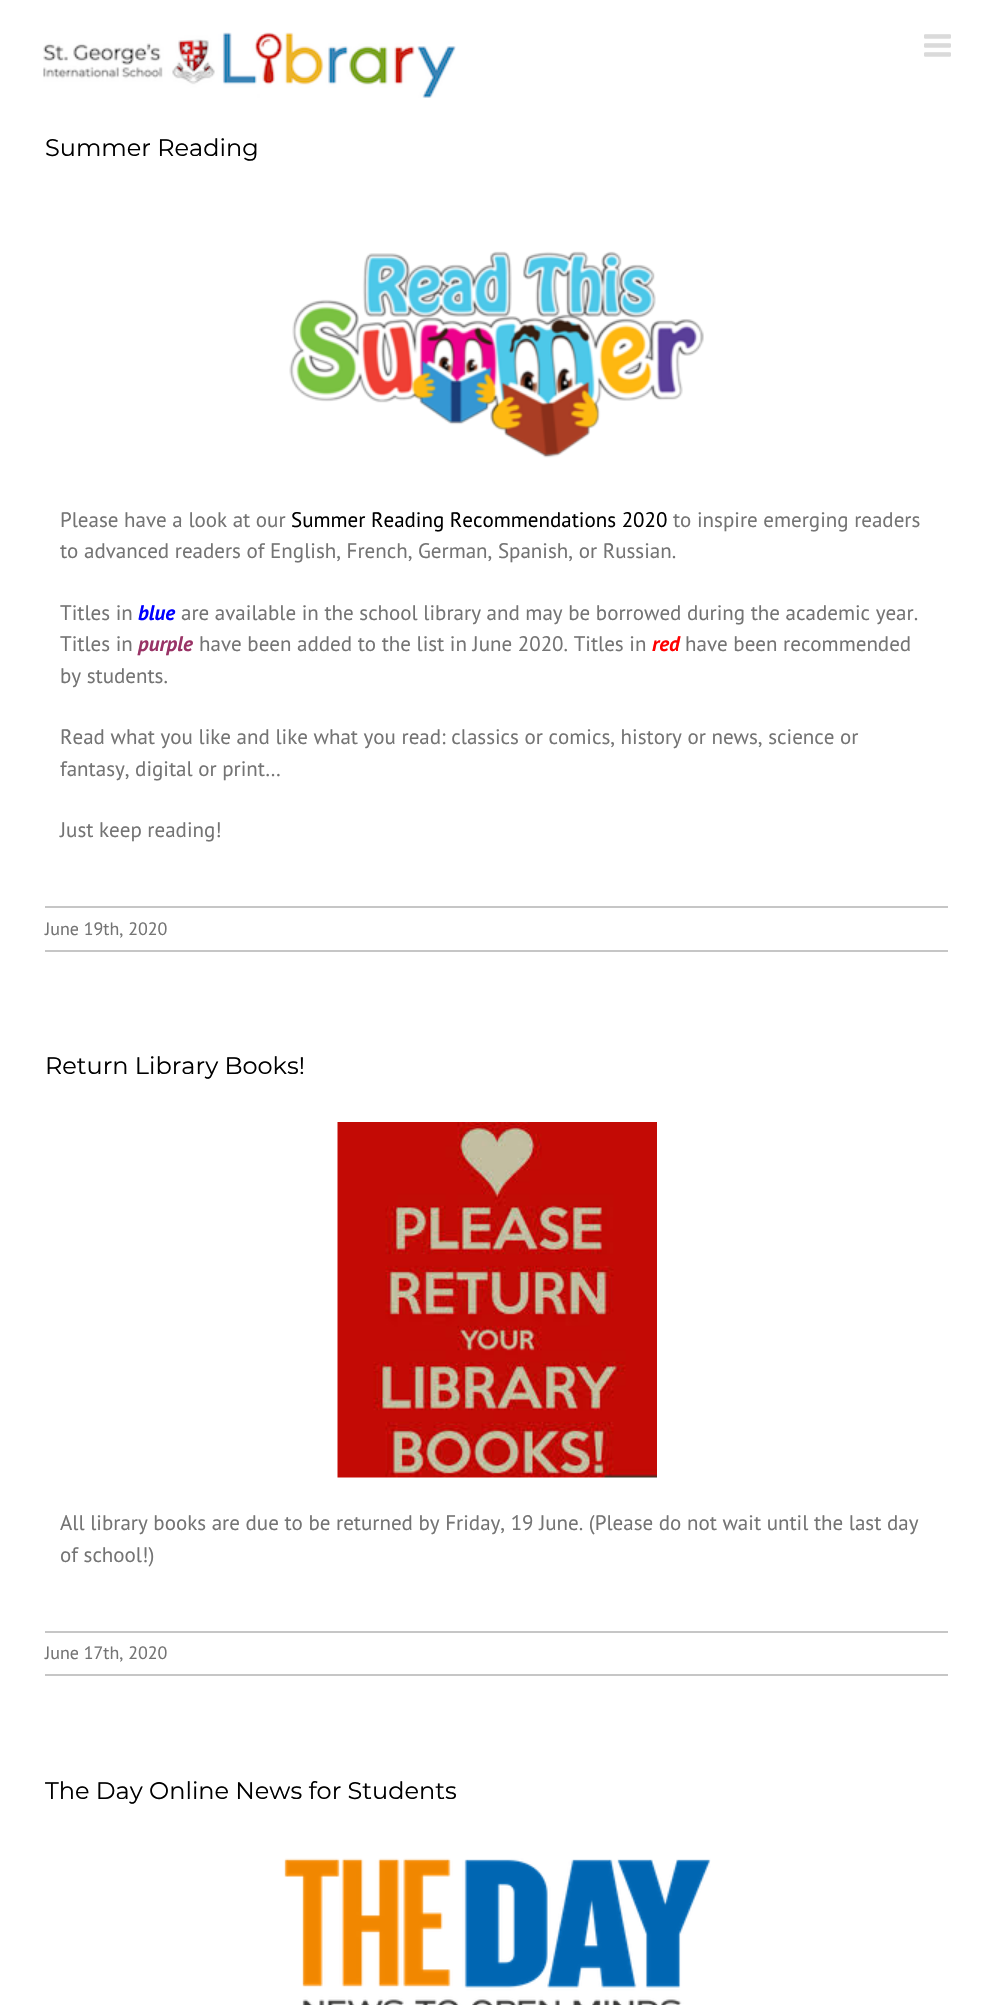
void draw(SkCanvas* canvas) {
    SkPaint paint;
    paint.setAntiAlias(true);
    canvas->clear(0xFFFFFFFF);
    canvas->drawImageRect(SkImages::DeferredFromEncodedData(SkData::MakeFromFileName("img1.png")), SkRect::MakeXYWH(43, 32, 413, 66), SkSamplingOptions());
    canvas->drawImageRect(SkImages::DeferredFromEncodedData(SkData::MakeFromFileName("img2.png")), SkRect::MakeXYWH(924, 34, 27, 23), SkSamplingOptions());
    SkFont font1(fontMgr->matchFamilyStyle("Montserrat", SkFontStyle(100, SkFontStyle::kNormal_Width, SkFontStyle::kUpright_Slant)), 24);
    font1.setSubpixel(true);
    paint.setColor(0xFF000000);
    canvas->drawString("Summer Reading", 45, 156, font1, paint);
    canvas->drawImageRect(SkImages::DeferredFromEncodedData(SkData::MakeFromFileName("img3.png")), SkRect::MakeXYWH(289, 251, 415, 207), SkSamplingOptions());
    SkFont font2(fontMgr->matchFamilyStyle("PT Sans", SkFontStyle::Normal()), 21);
    font2.setSubpixel(true);
    paint.setColor(0xFF747474);
    canvas->drawString("Please have a look at our", 60, 527, font2, paint);
    paint.setColor(0xFF000000);
    canvas->drawString("Summer Reading Recommendations 2020", 291, 527, font2, paint);
    paint.setColor(0xFF747474);
    canvas->drawString("to inspire emerging readers", 673, 527, font2, paint);
    canvas->drawString("to advanced readers of English, French, German, Spanish, or Russian.", 60, 558, font2, paint);
    canvas->drawString("Titles in", 60, 620, font2, paint);
    SkFont font3(fontMgr->matchFamilyStyle("PT Sans", SkFontStyle::BoldItalic()), 21);
    font3.setSubpixel(true);
    paint.setColor(0xFF0000FF);
    canvas->drawString("blue", 138, 620, font3, paint);
    paint.setColor(0xFF747474);
    canvas->drawString("are available in the school library and may be borrowed during the academic year.", 181, 620, font2, paint);
    canvas->drawString("Titles in", 60, 651, font2, paint);
    paint.setColor(0xFF993366);
    canvas->drawString("purple", 138, 651, font3, paint);
    paint.setColor(0xFF747474);
    canvas->drawString("have been added to the list in June 2020. Titles in", 199, 651, font2, paint);
    paint.setColor(0xFFFF0000);
    canvas->drawString("red", 652, 651, font3, paint);
    paint.setColor(0xFF747474);
    canvas->drawString("have been recommended", 685, 651, font2, paint);
    canvas->drawString("by students.", 60, 683, font2, paint);
    canvas->drawString("Read what you like and like what you read: classics or comics, history or news, science or", 60, 744, font2, paint);
    canvas->drawString("fantasy, digital or print…", 60, 776, font2, paint);
    canvas->drawString("Just keep reading!", 60, 837, font2, paint);
    paint.setColor(0xFFC6C6C6);
    canvas->drawRect(SkRect::MakeXYWH(45, 906, 903, 2), paint);
    canvas->drawRect(SkRect::MakeXYWH(45, 950, 903, 2), paint);
    SkFont font4(fontMgr->matchFamilyStyle("PT Sans", SkFontStyle::Normal()), 18);
    font4.setSubpixel(true);
    paint.setColor(0xFF747474);
    canvas->drawString("June 19th, 2020", 45, 935, font4, paint);
    paint.setColor(0xFF000000);
    canvas->drawString("Return Library Books!", 45, 1074, font1, paint);
    canvas->drawImageRect(SkImages::DeferredFromEncodedData(SkData::MakeFromFileName("img4.png")), SkRect::MakeXYWH(337, 1122, 320, 356), SkSamplingOptions());
    paint.setColor(0xFF747474);
    canvas->drawString("All library books are due to be returned by Friday, 19 June. (Please do not wait until the last day", 60, 1530, font2, paint);
    canvas->drawString("of school!)", 60, 1562, font2, paint);
    paint.setColor(0xFFC6C6C6);
    canvas->drawRect(SkRect::MakeXYWH(45, 1631, 903, 2), paint);
    canvas->drawRect(SkRect::MakeXYWH(45, 1674, 903, 2), paint);
    paint.setColor(0xFF747474);
    canvas->drawString("June 17th, 2020", 45, 1659, font4, paint);
    paint.setColor(0xFF000000);
    canvas->drawString("The Day Online News for Students", 45, 1799, font1, paint);
    canvas->drawImageRect(SkImages::DeferredFromEncodedData(SkData::MakeFromFileName("img5.png")), SkRect::MakeXYWH(284, 1858, 427, 147), SkSamplingOptions());
}
